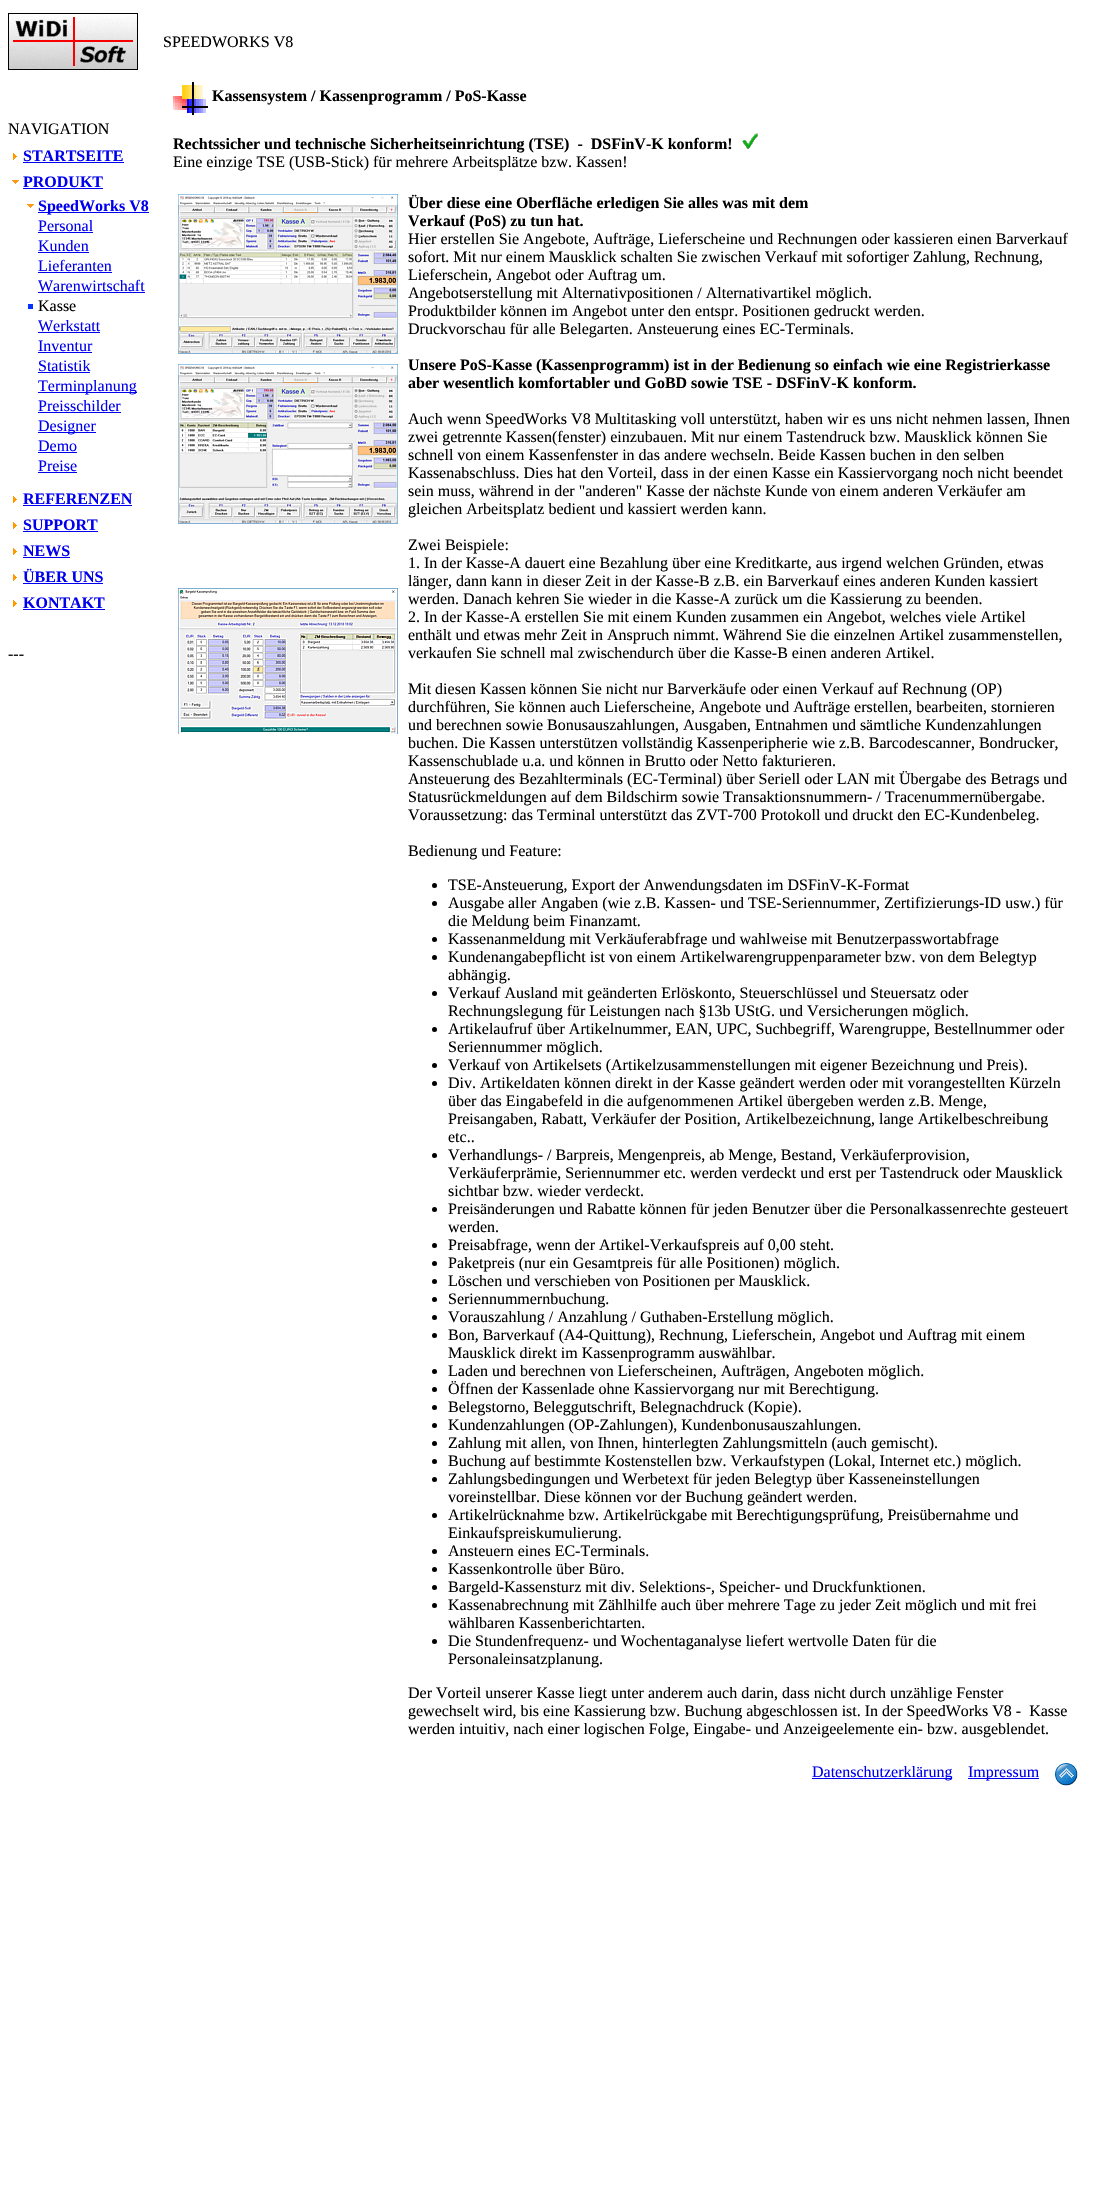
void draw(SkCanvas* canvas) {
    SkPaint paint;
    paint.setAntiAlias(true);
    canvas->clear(0xFFFFFFFF);
    canvas->drawImageRect(SkImages::DeferredFromEncodedData(SkData::MakeFromFileName("img1.png")), SkRect::MakeXYWH(8, 13, 130, 57), SkSamplingOptions());
    SkFont font1(fontMgr->matchFamilyStyle("Liberation Serif", SkFontStyle::Normal()), 16);
    font1.setSubpixel(true);
    paint.setColor(0xFF000000);
    canvas->drawString("SPEEDWORKS V8", 163, 47, font1, paint);
    canvas->drawString("NAVIGATION", 8, 134, font1, paint);
    canvas->drawImageRect(SkImages::DeferredFromEncodedData(SkData::MakeFromFileName("img2.png")), SkRect::MakeXYWH(13, 153, 4, 7), SkSamplingOptions());
    SkFont font2(fontMgr->matchFamilyStyle("Liberation Serif", SkFontStyle::Bold()), 16);
    font2.setSubpixel(true);
    paint.setColor(0xFF0000EE);
    canvas->drawString("STARTSEITE", 23, 161, font2, paint);
    canvas->drawRect(SkRect::MakeXYWH(23, 162, 101, 1), paint);
    canvas->drawImageRect(SkImages::DeferredFromEncodedData(SkData::MakeFromFileName("img3.png")), SkRect::MakeXYWH(12, 180, 7, 4), SkSamplingOptions());
    canvas->drawString("PRODUKT", 23, 187, font2, paint);
    canvas->drawRect(SkRect::MakeXYWH(23, 188, 80, 1), paint);
    canvas->drawImageRect(SkImages::DeferredFromEncodedData(SkData::MakeFromFileName("img3.png")), SkRect::MakeXYWH(27, 204, 7, 4), SkSamplingOptions());
    canvas->drawRect(SkRect::MakeXYWH(38, 212, 111, 1), paint);
    canvas->drawString("SpeedWorks V8", 38, 211, font2, paint);
    canvas->drawString("Personal", 38, 231, font1, paint);
    canvas->drawRect(SkRect::MakeXYWH(38, 232, 55, 1), paint);
    canvas->drawString("Kunden", 38, 251, font1, paint);
    canvas->drawRect(SkRect::MakeXYWH(38, 252, 51, 1), paint);
    canvas->drawString("Lieferanten", 38, 271, font1, paint);
    canvas->drawRect(SkRect::MakeXYWH(38, 272, 74, 1), paint);
    canvas->drawString("Warenwirtschaft", 38, 291, font1, paint);
    canvas->drawRect(SkRect::MakeXYWH(38, 292, 107, 1), paint);
    paint.setColor(0xFF0033FF);
    canvas->drawRect(SkRect::MakeXYWH(28, 304, 5, 5), paint);
    paint.setColor(0xFF000000);
    canvas->drawString("Kasse", 38, 311, font1, paint);
    paint.setColor(0xFF0000EE);
    canvas->drawString("Werkstatt", 38, 331, font1, paint);
    canvas->drawRect(SkRect::MakeXYWH(38, 332, 62, 1), paint);
    canvas->drawString("Inventur", 38, 351, font1, paint);
    canvas->drawRect(SkRect::MakeXYWH(38, 352, 54, 1), paint);
    canvas->drawString("Statistik", 38, 371, font1, paint);
    canvas->drawRect(SkRect::MakeXYWH(38, 372, 52, 1), paint);
    canvas->drawRect(SkRect::MakeXYWH(38, 392, 99, 1), paint);
    canvas->drawString("Terminplanung", 38, 391, font1, paint);
    canvas->drawString("Preisschilder", 38, 411, font1, paint);
    canvas->drawRect(SkRect::MakeXYWH(38, 412, 83, 1), paint);
    canvas->drawRect(SkRect::MakeXYWH(38, 432, 58, 1), paint);
    canvas->drawString("Designer", 38, 431, font1, paint);
    canvas->drawString("Demo", 38, 451, font1, paint);
    canvas->drawRect(SkRect::MakeXYWH(38, 452, 39, 1), paint);
    canvas->drawString("Preise", 38, 471, font1, paint);
    canvas->drawRect(SkRect::MakeXYWH(38, 472, 39, 1), paint);
    canvas->drawImageRect(SkImages::DeferredFromEncodedData(SkData::MakeFromFileName("img2.png")), SkRect::MakeXYWH(13, 496, 4, 7), SkSamplingOptions());
    canvas->drawString("REFERENZEN", 23, 504, font2, paint);
    canvas->drawRect(SkRect::MakeXYWH(23, 505, 109, 1), paint);
    canvas->drawImageRect(SkImages::DeferredFromEncodedData(SkData::MakeFromFileName("img2.png")), SkRect::MakeXYWH(13, 522, 4, 7), SkSamplingOptions());
    canvas->drawString("SUPPORT", 23, 530, font2, paint);
    canvas->drawRect(SkRect::MakeXYWH(23, 531, 75, 1), paint);
    canvas->drawImageRect(SkImages::DeferredFromEncodedData(SkData::MakeFromFileName("img2.png")), SkRect::MakeXYWH(13, 548, 4, 7), SkSamplingOptions());
    canvas->drawString("NEWS", 23, 556, font2, paint);
    canvas->drawRect(SkRect::MakeXYWH(23, 557, 47, 1), paint);
    canvas->drawImageRect(SkImages::DeferredFromEncodedData(SkData::MakeFromFileName("img2.png")), SkRect::MakeXYWH(13, 574, 4, 7), SkSamplingOptions());
    canvas->drawString("ÜBER UNS", 23, 582, font2, paint);
    canvas->drawRect(SkRect::MakeXYWH(23, 583, 80, 1), paint);
    canvas->drawImageRect(SkImages::DeferredFromEncodedData(SkData::MakeFromFileName("img2.png")), SkRect::MakeXYWH(13, 600, 4, 7), SkSamplingOptions());
    canvas->drawString("KONTAKT", 23, 608, font2, paint);
    canvas->drawRect(SkRect::MakeXYWH(23, 609, 82, 1), paint);
    paint.setColor(0xFF000000);
    canvas->drawString("---", 8, 659, font1, paint);
    canvas->drawImageRect(SkImages::DeferredFromEncodedData(SkData::MakeFromFileName("img4.png")), SkRect::MakeXYWH(173, 82, 35, 33), SkSamplingOptions());
    canvas->drawString("Kassensystem / Kassenprogramm / PoS-Kasse", 212, 101, font2, paint);
    canvas->drawString("Rechtssicher und technische Sicherheitseinrichtung (TSE)  -  DSFinV-K konform!", 173, 149, font2, paint);
    canvas->drawImageRect(SkImages::DeferredFromEncodedData(SkData::MakeFromFileName("img5.png")), SkRect::MakeXYWH(742, 133, 16, 16), SkSamplingOptions());
    canvas->drawString("Eine einzige TSE (USB-Stick) für mehrere Arbeitsplätze bzw. Kassen!", 173, 167, font1, paint);
    canvas->drawImageRect(SkImages::DeferredFromEncodedData(SkData::MakeFromFileName("img6.png")), SkRect::MakeXYWH(178, 194, 220, 160), SkSamplingOptions());
    canvas->drawImageRect(SkImages::DeferredFromEncodedData(SkData::MakeFromFileName("img7.png")), SkRect::MakeXYWH(178, 364, 220, 160), SkSamplingOptions());
    canvas->drawImageRect(SkImages::DeferredFromEncodedData(SkData::MakeFromFileName("img8.png")), SkRect::MakeXYWH(178, 588, 220, 146), SkSamplingOptions());
    canvas->drawString("Über diese eine Oberfläche erledigen Sie alles was mit dem", 408, 208, font2, paint);
    canvas->drawString("Verkauf (PoS) zu tun hat.", 408, 226, font2, paint);
    canvas->drawString("Hier erstellen Sie Angebote, Aufträge, Lieferscheine und Rechnungen oder kassieren einen Barverkauf", 408, 244, font1, paint);
    canvas->drawString("sofort. Mit nur einem Mausklick schalten Sie zwischen Verkauf mit sofortiger Zahlung, Rechnung,", 408, 262, font1, paint);
    canvas->drawString("Lieferschein, Angebot oder Auftrag um.", 408, 280, font1, paint);
    canvas->drawString("Angebotserstellung mit Alternativpositionen / Alternativartikel möglich.", 408, 298, font1, paint);
    canvas->drawString("Produktbilder können im Angebot unter den entspr. Positionen gedruckt werden.", 408, 316, font1, paint);
    canvas->drawString("Druckvorschau für alle Belegarten. Ansteuerung eines EC-Terminals.", 408, 334, font1, paint);
    canvas->drawString("Unsere PoS-Kasse (Kassenprogramm) ist in der Bedienung so einfach wie eine Registrierkasse", 408, 370, font2, paint);
    canvas->drawString("aber wesentlich komfortabler und GoBD sowie TSE - DSFinV-K konform.", 408, 388, font2, paint);
    canvas->drawString("Auch wenn SpeedWorks V8 Multitasking voll unterstützt, haben wir es uns nicht nehmen lassen, Ihnen", 408, 424, font1, paint);
    canvas->drawString("zwei getrennte Kassen(fenster) einzubauen. Mit nur einem Tastendruck bzw. Mausklick können Sie", 408, 442, font1, paint);
    canvas->drawString("schnell von einem Kassenfenster in das andere wechseln. Beide Kassen buchen in den selben", 408, 460, font1, paint);
    canvas->drawString("Kassenabschluss. Dies hat den Vorteil, dass in der einen Kasse ein Kassiervorgang noch nicht beendet", 408, 478, font1, paint);
    canvas->drawString("sein muss, während in der \"anderen\" Kasse der nächste Kunde von einem anderen Verkäufer am", 408, 496, font1, paint);
    canvas->drawString("gleichen Arbeitsplatz bedient und kassiert werden kann.", 408, 514, font1, paint);
    canvas->drawString("Zwei Beispiele:", 408, 550, font1, paint);
    canvas->drawString("1. In der Kasse-A dauert eine Bezahlung über eine Kreditkarte, aus irgend welchen Gründen, etwas", 408, 568, font1, paint);
    canvas->drawString("länger, dann kann in dieser Zeit in der Kasse-B z.B. ein Barverkauf eines anderen Kunden kassiert", 408, 586, font1, paint);
    canvas->drawString("werden. Danach kehren Sie wieder in die Kasse-A zurück um die Kassierung zu beenden.", 408, 604, font1, paint);
    canvas->drawString("2. In der Kasse-A erstellen Sie mit einem Kunden zusammen ein Angebot, welches viele Artikel", 408, 622, font1, paint);
    canvas->drawString("enthält und etwas mehr Zeit in Anspruch nimmt. Während Sie die einzelnen Artikel zusammenstellen,", 408, 640, font1, paint);
    canvas->drawString("verkaufen Sie schnell mal zwischendurch über die Kasse-B einen anderen Artikel.", 408, 658, font1, paint);
    canvas->drawString("Mit diesen Kassen können Sie nicht nur Barverkäufe oder einen Verkauf auf Rechnung (OP)", 408, 694, font1, paint);
    canvas->drawString("durchführen, Sie können auch Lieferscheine, Angebote und Aufträge erstellen, bearbeiten, stornieren", 408, 712, font1, paint);
    canvas->drawString("und berechnen sowie Bonusauszahlungen, Ausgaben, Entnahmen und sämtliche Kundenzahlungen", 408, 730, font1, paint);
    canvas->drawString("buchen. Die Kassen unterstützen vollständig Kassenperipherie wie z.B. Barcodescanner, Bondrucker,", 408, 748, font1, paint);
    canvas->drawString("Kassenschublade u.a. und können in Brutto oder Netto fakturieren.", 408, 766, font1, paint);
    canvas->drawString("Ansteuerung des Bezahlterminals (EC-Terminal) über Seriell oder LAN mit Übergabe des Betrags und", 408, 784, font1, paint);
    canvas->drawString("Statusrückmeldungen auf dem Bildschirm sowie Transaktionsnummern- / Tracenummernübergabe.", 408, 802, font1, paint);
    canvas->drawString("Voraussetzung: das Terminal unterstützt das ZVT-700 Protokoll und druckt den EC-Kundenbeleg.", 408, 820, font1, paint);
    canvas->drawString("Bedienung und Feature:", 408, 856, font1, paint);
    canvas->drawCircle(434.5f, 885.5f, 2.5f, paint);
    canvas->drawString("TSE-Ansteuerung, Export der Anwendungsdaten im DSFinV-K-Format", 448, 890, font1, paint);
    canvas->drawCircle(434.5f, 903.5f, 2.5f, paint);
    canvas->drawString("Ausgabe aller Angaben (wie z.B. Kassen- und TSE-Seriennummer, Zertifizierungs-ID usw.) für", 448, 908, font1, paint);
    canvas->drawString("die Meldung beim Finanzamt.", 448, 926, font1, paint);
    canvas->drawCircle(434.5f, 939.5f, 2.5f, paint);
    canvas->drawString("Kassenanmeldung mit Verkäuferabfrage und wahlweise mit Benutzerpasswortabfrage", 448, 944, font1, paint);
    canvas->drawCircle(434.5f, 957.5f, 2.5f, paint);
    canvas->drawString("Kundenangabepflicht ist von einem Artikelwarengruppenparameter bzw. von dem Belegtyp", 448, 962, font1, paint);
    canvas->drawString("abhängig.", 448, 980, font1, paint);
    canvas->drawCircle(434.5f, 993.5f, 2.5f, paint);
    canvas->drawString("Verkauf Ausland mit geänderten Erlöskonto, Steuerschlüssel und Steuersatz oder", 448, 998, font1, paint);
    canvas->drawString("Rechnungslegung für Leistungen nach §13b UStG. und Versicherungen möglich.", 448, 1016, font1, paint);
    canvas->drawCircle(434.5f, 1029.5f, 2.5f, paint);
    canvas->drawString("Artikelaufruf über Artikelnummer, EAN, UPC, Suchbegriff, Warengruppe, Bestellnummer oder", 448, 1034, font1, paint);
    canvas->drawString("Seriennummer möglich.", 448, 1052, font1, paint);
    canvas->drawCircle(434.5f, 1065.5f, 2.5f, paint);
    canvas->drawString("Verkauf von Artikelsets (Artikelzusammenstellungen mit eigener Bezeichnung und Preis).", 448, 1070, font1, paint);
    canvas->drawCircle(434.5f, 1083.5f, 2.5f, paint);
    canvas->drawString("Div. Artikeldaten können direkt in der Kasse geändert werden oder mit vorangestellten Kürzeln", 448, 1088, font1, paint);
    canvas->drawString("über das Eingabefeld in die aufgenommenen Artikel übergeben werden z.B. Menge,", 448, 1106, font1, paint);
    canvas->drawString("Preisangaben, Rabatt, Verkäufer der Position, Artikelbezeichnung, lange Artikelbeschreibung", 448, 1124, font1, paint);
    canvas->drawString("etc..", 448, 1142, font1, paint);
    canvas->drawCircle(434.5f, 1155.5f, 2.5f, paint);
    canvas->drawString("Verhandlungs- / Barpreis, Mengenpreis, ab Menge, Bestand, Verkäuferprovision,", 448, 1160, font1, paint);
    canvas->drawString("Verkäuferprämie, Seriennummer etc. werden verdeckt und erst per Tastendruck oder Mausklick", 448, 1178, font1, paint);
    canvas->drawString("sichtbar bzw. wieder verdeckt.", 448, 1196, font1, paint);
    canvas->drawCircle(434.5f, 1209.5f, 2.5f, paint);
    canvas->drawString("Preisänderungen und Rabatte können für jeden Benutzer über die Personalkassenrechte gesteuert", 448, 1214, font1, paint);
    canvas->drawString("werden.", 448, 1232, font1, paint);
    canvas->drawCircle(434.5f, 1245.5f, 2.5f, paint);
    canvas->drawString("Preisabfrage, wenn der Artikel-Verkaufspreis auf 0,00 steht.", 448, 1250, font1, paint);
    canvas->drawCircle(434.5f, 1263.5f, 2.5f, paint);
    canvas->drawString("Paketpreis (nur ein Gesamtpreis für alle Positionen) möglich.", 448, 1268, font1, paint);
    canvas->drawCircle(434.5f, 1281.5f, 2.5f, paint);
    canvas->drawString("Löschen und verschieben von Positionen per Mausklick.", 448, 1286, font1, paint);
    canvas->drawCircle(434.5f, 1299.5f, 2.5f, paint);
    canvas->drawString("Seriennummernbuchung.", 448, 1304, font1, paint);
    canvas->drawCircle(434.5f, 1317.5f, 2.5f, paint);
    canvas->drawString("Vorauszahlung / Anzahlung / Guthaben-Erstellung möglich.", 448, 1322, font1, paint);
    canvas->drawCircle(434.5f, 1335.5f, 2.5f, paint);
    canvas->drawString("Bon, Barverkauf (A4-Quittung), Rechnung, Lieferschein, Angebot und Auftrag mit einem", 448, 1340, font1, paint);
    canvas->drawString("Mausklick direkt im Kassenprogramm auswählbar.", 448, 1358, font1, paint);
    canvas->drawCircle(434.5f, 1371.5f, 2.5f, paint);
    canvas->drawString("Laden und berechnen von Lieferscheinen, Aufträgen, Angeboten möglich.", 448, 1376, font1, paint);
    canvas->drawCircle(434.5f, 1389.5f, 2.5f, paint);
    canvas->drawString("Öffnen der Kassenlade ohne Kassiervorgang nur mit Berechtigung.", 448, 1394, font1, paint);
    canvas->drawCircle(434.5f, 1407.5f, 2.5f, paint);
    canvas->drawString("Belegstorno, Beleggutschrift, Belegnachdruck (Kopie).", 448, 1412, font1, paint);
    canvas->drawCircle(434.5f, 1425.5f, 2.5f, paint);
    canvas->drawString("Kundenzahlungen (OP-Zahlungen), Kundenbonusauszahlungen.", 448, 1430, font1, paint);
    canvas->drawCircle(434.5f, 1443.5f, 2.5f, paint);
    canvas->drawString("Zahlung mit allen, von Ihnen, hinterlegten Zahlungsmitteln (auch gemischt).", 448, 1448, font1, paint);
    canvas->drawCircle(434.5f, 1461.5f, 2.5f, paint);
    canvas->drawString("Buchung auf bestimmte Kostenstellen bzw. Verkaufstypen (Lokal, Internet etc.) möglich.", 448, 1466, font1, paint);
    canvas->drawCircle(434.5f, 1479.5f, 2.5f, paint);
    canvas->drawString("Zahlungsbedingungen und Werbetext für jeden Belegtyp über Kasseneinstellungen", 448, 1484, font1, paint);
    canvas->drawString("voreinstellbar. Diese können vor der Buchung geändert werden.", 448, 1502, font1, paint);
    canvas->drawCircle(434.5f, 1515.5f, 2.5f, paint);
    canvas->drawString("Artikelrücknahme bzw. Artikelrückgabe mit Berechtigungsprüfung, Preisübernahme und", 448, 1520, font1, paint);
    canvas->drawString("Einkaufspreiskumulierung.", 448, 1538, font1, paint);
    canvas->drawCircle(434.5f, 1551.5f, 2.5f, paint);
    canvas->drawString("Ansteuern eines EC-Terminals.", 448, 1556, font1, paint);
    canvas->drawCircle(434.5f, 1569.5f, 2.5f, paint);
    canvas->drawString("Kassenkontrolle über Büro.", 448, 1574, font1, paint);
    canvas->drawCircle(434.5f, 1587.5f, 2.5f, paint);
    canvas->drawString("Bargeld-Kassensturz mit div. Selektions-, Speicher- und Druckfunktionen.", 448, 1592, font1, paint);
    canvas->drawCircle(434.5f, 1605.5f, 2.5f, paint);
    canvas->drawString("Kassenabrechnung mit Zählhilfe auch über mehrere Tage zu jeder Zeit möglich und mit frei", 448, 1610, font1, paint);
    canvas->drawString("wählbaren Kassenberichtarten.", 448, 1628, font1, paint);
    canvas->drawCircle(434.5f, 1641.5f, 2.5f, paint);
    canvas->drawString("Die Stundenfrequenz- und Wochentaganalyse liefert wertvolle Daten für die", 448, 1646, font1, paint);
    canvas->drawString("Personaleinsatzplanung.", 448, 1664, font1, paint);
    canvas->drawString("Der Vorteil unserer Kasse liegt unter anderem auch darin, dass nicht durch unzählige Fenster", 408, 1698, font1, paint);
    canvas->drawString("gewechselt wird, bis eine Kassierung bzw. Buchung abgeschlossen ist. In der SpeedWorks V8 -  Kasse", 408, 1716, font1, paint);
    canvas->drawString("werden intuitiv, nach einer logischen Folge, Eingabe- und Anzeigeelemente ein- bzw. ausgeblendet.", 408, 1734, font1, paint);
    paint.setColor(0xFF0000EE);
    canvas->drawRect(SkRect::MakeXYWH(812, 1778, 140, 1), paint);
    canvas->drawString("Datenschutzerklärung", 812, 1777, font1, paint);
    canvas->drawRect(SkRect::MakeXYWH(968, 1778, 71, 1), paint);
    canvas->drawString("Impressum", 968, 1777, font1, paint);
    canvas->drawImageRect(SkImages::DeferredFromEncodedData(SkData::MakeFromFileName("img9.png")), SkRect::MakeXYWH(1055, 1763, 23, 23), SkSamplingOptions());
}
